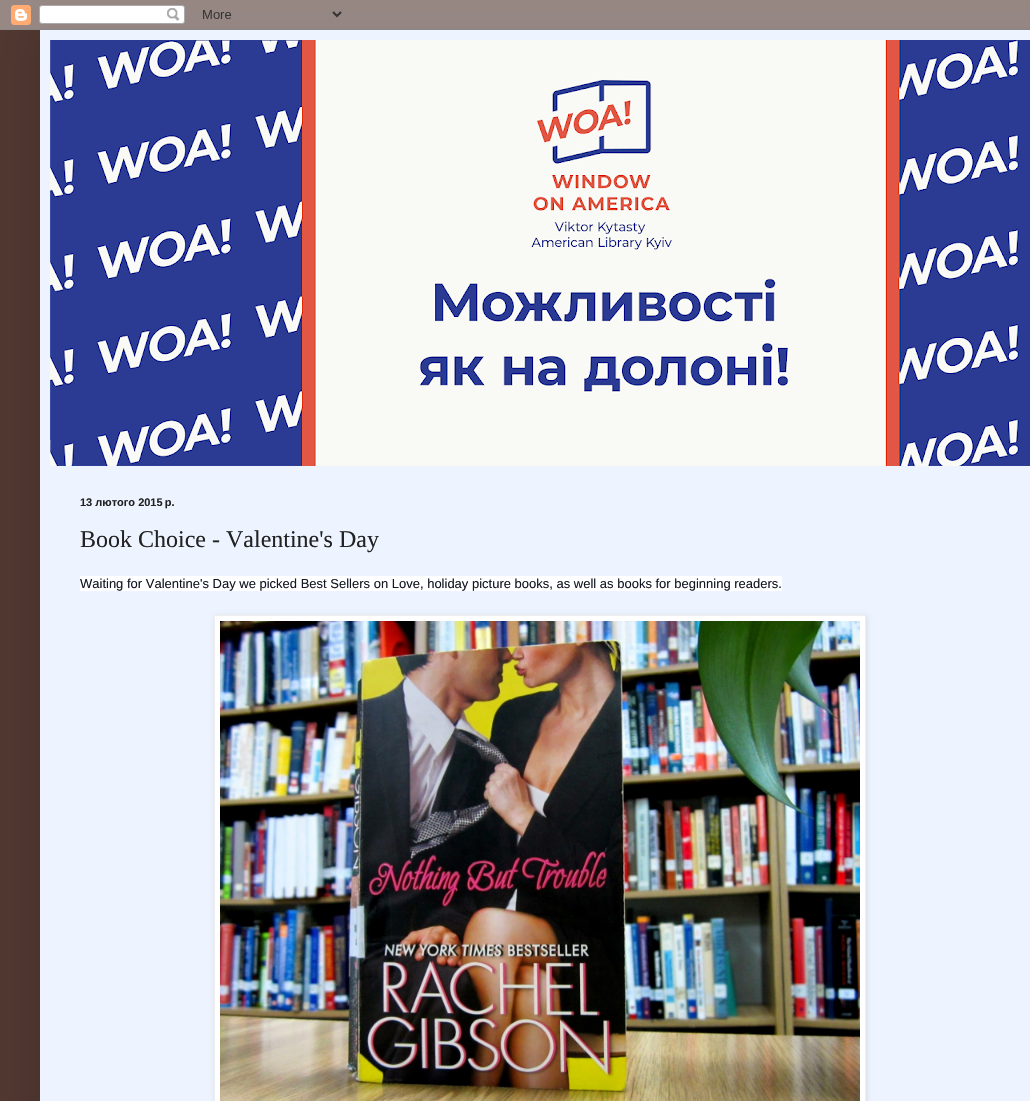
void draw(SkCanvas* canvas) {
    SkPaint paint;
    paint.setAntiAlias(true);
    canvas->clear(0xFF513831);
    paint.setColor(0x26000000);
    paint.setMaskFilter(SkMaskFilter::MakeBlur(kNormal_SkBlurStyle, 20));
    canvas->drawRect(SkRect::MakeXYWH(40, 30, 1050, 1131), paint);
    paint.setMaskFilter(nullptr);
    canvas->drawImageRect(SkImages::DeferredFromEncodedData(SkData::MakeFromFileName("img1.png")), SkRect::MakeXYWH(0, 0, 1030, 30), SkSamplingOptions());
    paint.setColor(0xFFEEF4FF);
    canvas->drawRect(SkRect::MakeXYWH(40, 30, 990, 1071), paint);
    paint.setColor(0xFF667CCC);
    canvas->drawRect(SkRect::MakeXYWH(50, 40, 980, 426), paint);
    canvas->drawImageRect(SkImages::DeferredFromEncodedData(SkData::MakeFromFileName("img2.png")), SkRect::MakeXYWH(50, 40, 980, 426), SkSamplingOptions());
    canvas->drawImageRect(SkImages::DeferredFromEncodedData(SkData::MakeFromFileName("img3.png")), SkRect::MakeXYWH(50, 40, 980, 426), SkSamplingOptions());
    SkFont font1(fontMgr->matchFamilyStyle("Liberation Sans", SkFontStyle::Bold()), 11);
    font1.setSubpixel(true);
    paint.setColor(0xFF222222);
    canvas->drawString("13 лютого 2015 р.", 80, 506, font1, paint);
    SkFont font2(fontMgr->matchFamilyStyle("Liberation Serif", SkFontStyle::Normal()), 24);
    font2.setSubpixel(true);
    canvas->drawString("Book Choice - Valentine's Day", 80, 547, font2, paint);
    paint.setColor(0xFFFFFFFF);
    canvas->drawRect(SkRect::MakeXYWH(80, 576, 702, 15), paint);
    SkFont font3(fontMgr->matchFamilyStyle("Liberation Sans", SkFontStyle::Normal()), 13);
    font3.setSubpixel(true);
    paint.setColor(0xFF141823);
    canvas->drawString("Waiting for Valentine's Day we picked Best Sellers on Love, holiday picture books, as well as books for beginning readers.", 80, 588, font3, paint);
    paint.setColor(0x1A000000);
    paint.setMaskFilter(SkMaskFilter::MakeBlur(kNormal_SkBlurStyle, 2.5f));
    canvas->drawRect(SkRect::MakeXYWH(215, 616, 652, 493), paint);
    paint.setMaskFilter(nullptr);
    paint.setColor(0xFFFFFFFF);
    canvas->drawRect(SkRect::MakeXYWH(214.5f, 615.5f, 651, 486), paint);
    paint.setStyle(SkPaint::kStroke_Style);
    paint.setStrokeWidth(1);
    paint.setColor(0xFFEEEEEE);
    canvas->drawRect(SkRect::MakeXYWH(214.5f, 615.5f, 651, 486), paint);
    canvas->drawImageRect(SkImages::DeferredFromEncodedData(SkData::MakeFromFileName("img4.png")), SkRect::MakeXYWH(220, 621, 640, 480), SkSamplingOptions());
}
